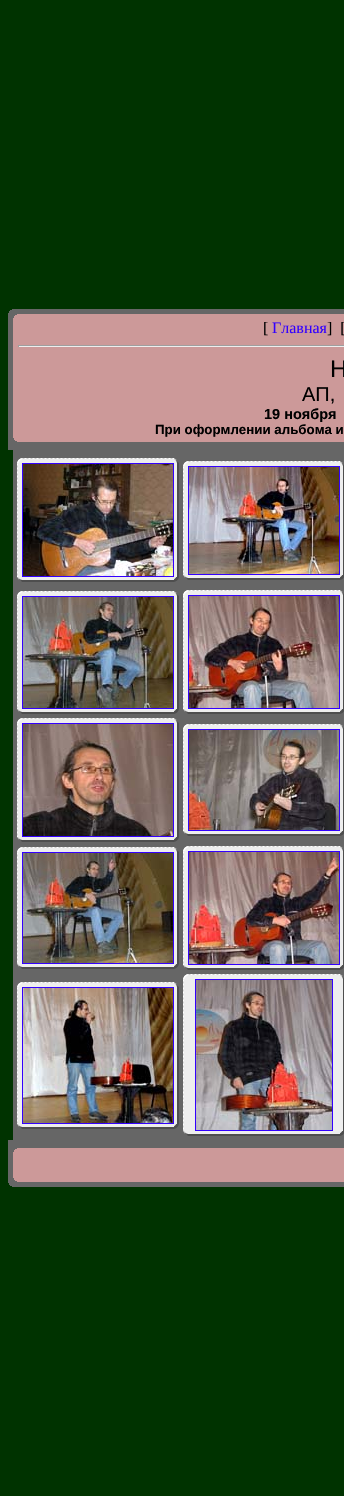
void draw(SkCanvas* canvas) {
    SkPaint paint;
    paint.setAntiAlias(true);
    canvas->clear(0xFF003300);
    canvas->drawImageRect(SkImages::DeferredFromEncodedData(SkData::MakeFromFileName("img1.png")), SkRect::MakeXYWH(8, 309, 5, 5), SkSamplingOptions());
    paint.setColor(0xFF666666);
    canvas->drawRect(SkRect::MakeXYWH(13, 309, 331, 5), paint);
    canvas->drawRect(SkRect::MakeXYWH(8, 314, 5, 128), paint);
    paint.setColor(0xFFCC9999);
    canvas->drawRect(SkRect::MakeXYWH(13, 314, 331, 5), paint);
    canvas->drawImageRect(SkImages::DeferredFromEncodedData(SkData::MakeFromFileName("img2.png")), SkRect::MakeXYWH(13, 314, 4, 4), SkSamplingOptions());
    canvas->drawRect(SkRect::MakeXYWH(13, 319, 331, 118), paint);
    SkFont font1(fontMgr->matchFamilyStyle("Liberation Serif", SkFontStyle::Normal()), 16);
    font1.setSubpixel(true);
    paint.setColor(0xFF000000);
    canvas->drawString("[", 263, 333, font1, paint);
    paint.setColor(0xFF3300FF);
    canvas->drawString("Главная", 272, 333, font1, paint);
    paint.setColor(0xFF000000);
    canvas->drawString("]  [", 327, 333, font1, paint);
    paint.setColor(0xFF9F9F9F);
    canvas->drawRect(SkRect::MakeXYWH(18, 345, 326, 1), paint);
    paint.setColor(0xFFEEEEEE);
    canvas->drawRect(SkRect::MakeXYWH(18, 346, 326, 1), paint);
    paint.setColor(0xFF9F9F9F);
    canvas->drawRect(SkRect::MakeXYWH(18, 345, 1, 2), paint);
    SkFont font2(fontMgr->matchFamilyStyle("Liberation Sans", SkFontStyle::Normal()), 24);
    font2.setSubpixel(true);
    paint.setColor(0xFF000000);
    canvas->drawString("Н", 330, 377, font2, paint);
    SkFont font3(fontMgr->matchFamilyStyle("Liberation Sans", SkFontStyle::Normal()), 20);
    font3.setSubpixel(true);
    canvas->drawString("АП,", 302, 401, font3, paint);
    SkFont font4(fontMgr->matchFamilyStyle("Liberation Sans", SkFontStyle::Bold()), 14.5f);
    font4.setSubpixel(true);
    canvas->drawString("19 ноября", 264, 419, font4, paint);
    SkFont font5(fontMgr->matchFamilyStyle("Liberation Sans", SkFontStyle::Bold()), 13.3f);
    font5.setSubpixel(true);
    canvas->drawString("При оформлении альбома и", 155, 434, font5, paint);
    paint.setColor(0xFFCC9999);
    canvas->drawRect(SkRect::MakeXYWH(13, 437, 331, 5), paint);
    canvas->drawImageRect(SkImages::DeferredFromEncodedData(SkData::MakeFromFileName("img3.png")), SkRect::MakeXYWH(13, 438, 4, 4), SkSamplingOptions());
    paint.setColor(0xFF666666);
    canvas->drawRect(SkRect::MakeXYWH(8, 442, 336, 8), paint);
    canvas->drawRect(SkRect::MakeXYWH(13, 450, 331, 690), paint);
    canvas->drawImageRect(SkImages::DeferredFromEncodedData(SkData::MakeFromFileName("img4.png")), SkRect::MakeXYWH(17, 458, 5, 5), SkSamplingOptions());
    paint.setColor(0xFFEEEEEE);
    canvas->drawRect(SkRect::MakeXYWH(22, 459, 152, 4), paint);
    canvas->drawImageRect(SkImages::DeferredFromEncodedData(SkData::MakeFromFileName("img5.png")), SkRect::MakeXYWH(22, 458, 152, 1), SkSamplingOptions());
    canvas->drawImageRect(SkImages::DeferredFromEncodedData(SkData::MakeFromFileName("img6.png")), SkRect::MakeXYWH(174, 458, 5, 5), SkSamplingOptions());
    canvas->drawRect(SkRect::MakeXYWH(17, 463, 5, 114), paint);
    canvas->drawImageRect(SkImages::DeferredFromEncodedData(SkData::MakeFromFileName("img7.png")), SkRect::MakeXYWH(17, 464, 1, 113), SkSamplingOptions());
    paint.setStyle(SkPaint::kStroke_Style);
    paint.setStrokeWidth(1);
    paint.setColor(0xFF3300FF);
    canvas->drawRect(SkRect::MakeXYWH(22.5f, 463.5f, 151, 113), paint);
    canvas->drawImageRect(SkImages::DeferredFromEncodedData(SkData::MakeFromFileName("img8.png")), SkRect::MakeXYWH(23, 464, 150, 112), SkSamplingOptions());
    paint.setStyle(SkPaint::kFill_Style);
    paint.setColor(0xFFEEEEEE);
    canvas->drawRect(SkRect::MakeXYWH(174, 463, 3, 114), paint);
    paint.setColor(0xFF4E4E4E);
    canvas->drawRect(SkRect::MakeXYWH(177, 463, 2, 114), paint);
    canvas->drawImageRect(SkImages::DeferredFromEncodedData(SkData::MakeFromFileName("img9.png")), SkRect::MakeXYWH(17, 577, 5, 5), SkSamplingOptions());
    paint.setColor(0xFFEEEEEE);
    canvas->drawRect(SkRect::MakeXYWH(22, 577, 152, 3), paint);
    paint.setColor(0xFF4E4E4E);
    canvas->drawRect(SkRect::MakeXYWH(22, 580, 152, 2), paint);
    canvas->drawImageRect(SkImages::DeferredFromEncodedData(SkData::MakeFromFileName("img10.png")), SkRect::MakeXYWH(174, 577, 5, 5), SkSamplingOptions());
    canvas->drawImageRect(SkImages::DeferredFromEncodedData(SkData::MakeFromFileName("img4.png")), SkRect::MakeXYWH(183, 461, 5, 5), SkSamplingOptions());
    paint.setColor(0xFFEEEEEE);
    canvas->drawRect(SkRect::MakeXYWH(188, 462, 152, 4), paint);
    canvas->drawImageRect(SkImages::DeferredFromEncodedData(SkData::MakeFromFileName("img5.png")), SkRect::MakeXYWH(188, 461, 152, 1), SkSamplingOptions());
    canvas->drawImageRect(SkImages::DeferredFromEncodedData(SkData::MakeFromFileName("img11.png")), SkRect::MakeXYWH(340, 461, 4, 5), SkSamplingOptions());
    canvas->drawRect(SkRect::MakeXYWH(183, 466, 5, 109), paint);
    canvas->drawImageRect(SkImages::DeferredFromEncodedData(SkData::MakeFromFileName("img12.png")), SkRect::MakeXYWH(183, 467, 1, 107), SkSamplingOptions());
    paint.setStyle(SkPaint::kStroke_Style);
    paint.setColor(0xFF3300FF);
    canvas->drawRect(SkRect::MakeXYWH(188.5f, 466.5f, 151, 108), paint);
    canvas->drawImageRect(SkImages::DeferredFromEncodedData(SkData::MakeFromFileName("img13.png")), SkRect::MakeXYWH(189, 467, 150, 107), SkSamplingOptions());
    paint.setStyle(SkPaint::kFill_Style);
    paint.setColor(0xFFEEEEEE);
    canvas->drawRect(SkRect::MakeXYWH(340, 466, 3, 109), paint);
    paint.setColor(0xFF4E4E4E);
    canvas->drawRect(SkRect::MakeXYWH(343, 466, 1, 109), paint);
    canvas->drawImageRect(SkImages::DeferredFromEncodedData(SkData::MakeFromFileName("img9.png")), SkRect::MakeXYWH(183, 575, 5, 5), SkSamplingOptions());
    paint.setColor(0xFFEEEEEE);
    canvas->drawRect(SkRect::MakeXYWH(188, 575, 152, 3), paint);
    paint.setColor(0xFF4E4E4E);
    canvas->drawRect(SkRect::MakeXYWH(188, 578, 152, 2), paint);
    canvas->drawImageRect(SkImages::DeferredFromEncodedData(SkData::MakeFromFileName("img14.png")), SkRect::MakeXYWH(340, 575, 4, 5), SkSamplingOptions());
    canvas->drawImageRect(SkImages::DeferredFromEncodedData(SkData::MakeFromFileName("img4.png")), SkRect::MakeXYWH(17, 591, 5, 5), SkSamplingOptions());
    paint.setColor(0xFFEEEEEE);
    canvas->drawRect(SkRect::MakeXYWH(22, 592, 152, 4), paint);
    canvas->drawImageRect(SkImages::DeferredFromEncodedData(SkData::MakeFromFileName("img5.png")), SkRect::MakeXYWH(22, 591, 152, 1), SkSamplingOptions());
    canvas->drawImageRect(SkImages::DeferredFromEncodedData(SkData::MakeFromFileName("img6.png")), SkRect::MakeXYWH(174, 591, 5, 5), SkSamplingOptions());
    canvas->drawRect(SkRect::MakeXYWH(17, 596, 5, 113), paint);
    canvas->drawImageRect(SkImages::DeferredFromEncodedData(SkData::MakeFromFileName("img15.png")), SkRect::MakeXYWH(17, 597, 1, 111), SkSamplingOptions());
    paint.setStyle(SkPaint::kStroke_Style);
    paint.setColor(0xFF3300FF);
    canvas->drawRect(SkRect::MakeXYWH(22.5f, 596.5f, 151, 112), paint);
    canvas->drawImageRect(SkImages::DeferredFromEncodedData(SkData::MakeFromFileName("img16.png")), SkRect::MakeXYWH(23, 597, 150, 111), SkSamplingOptions());
    paint.setStyle(SkPaint::kFill_Style);
    paint.setColor(0xFFEEEEEE);
    canvas->drawRect(SkRect::MakeXYWH(174, 596, 3, 113), paint);
    paint.setColor(0xFF4E4E4E);
    canvas->drawRect(SkRect::MakeXYWH(177, 596, 2, 113), paint);
    canvas->drawImageRect(SkImages::DeferredFromEncodedData(SkData::MakeFromFileName("img9.png")), SkRect::MakeXYWH(17, 709, 5, 5), SkSamplingOptions());
    paint.setColor(0xFFEEEEEE);
    canvas->drawRect(SkRect::MakeXYWH(22, 709, 152, 3), paint);
    paint.setColor(0xFF4E4E4E);
    canvas->drawRect(SkRect::MakeXYWH(22, 712, 152, 2), paint);
    canvas->drawImageRect(SkImages::DeferredFromEncodedData(SkData::MakeFromFileName("img10.png")), SkRect::MakeXYWH(174, 709, 5, 5), SkSamplingOptions());
    canvas->drawImageRect(SkImages::DeferredFromEncodedData(SkData::MakeFromFileName("img4.png")), SkRect::MakeXYWH(183, 590, 5, 5), SkSamplingOptions());
    paint.setColor(0xFFEEEEEE);
    canvas->drawRect(SkRect::MakeXYWH(188, 591, 152, 4), paint);
    canvas->drawImageRect(SkImages::DeferredFromEncodedData(SkData::MakeFromFileName("img5.png")), SkRect::MakeXYWH(188, 590, 152, 1), SkSamplingOptions());
    canvas->drawImageRect(SkImages::DeferredFromEncodedData(SkData::MakeFromFileName("img11.png")), SkRect::MakeXYWH(340, 590, 4, 5), SkSamplingOptions());
    canvas->drawRect(SkRect::MakeXYWH(183, 595, 5, 114), paint);
    canvas->drawImageRect(SkImages::DeferredFromEncodedData(SkData::MakeFromFileName("img7.png")), SkRect::MakeXYWH(183, 596, 1, 113), SkSamplingOptions());
    paint.setStyle(SkPaint::kStroke_Style);
    paint.setColor(0xFF3300FF);
    canvas->drawRect(SkRect::MakeXYWH(188.5f, 595.5f, 151, 113), paint);
    canvas->drawImageRect(SkImages::DeferredFromEncodedData(SkData::MakeFromFileName("img17.png")), SkRect::MakeXYWH(189, 596, 150, 112), SkSamplingOptions());
    paint.setStyle(SkPaint::kFill_Style);
    paint.setColor(0xFFEEEEEE);
    canvas->drawRect(SkRect::MakeXYWH(340, 595, 3, 114), paint);
    paint.setColor(0xFF4E4E4E);
    canvas->drawRect(SkRect::MakeXYWH(343, 595, 1, 114), paint);
    canvas->drawImageRect(SkImages::DeferredFromEncodedData(SkData::MakeFromFileName("img9.png")), SkRect::MakeXYWH(183, 709, 5, 5), SkSamplingOptions());
    paint.setColor(0xFFEEEEEE);
    canvas->drawRect(SkRect::MakeXYWH(188, 709, 152, 3), paint);
    paint.setColor(0xFF4E4E4E);
    canvas->drawRect(SkRect::MakeXYWH(188, 712, 152, 2), paint);
    canvas->drawImageRect(SkImages::DeferredFromEncodedData(SkData::MakeFromFileName("img14.png")), SkRect::MakeXYWH(340, 709, 4, 5), SkSamplingOptions());
    canvas->drawImageRect(SkImages::DeferredFromEncodedData(SkData::MakeFromFileName("img4.png")), SkRect::MakeXYWH(17, 718, 5, 5), SkSamplingOptions());
    paint.setColor(0xFFEEEEEE);
    canvas->drawRect(SkRect::MakeXYWH(22, 719, 152, 4), paint);
    canvas->drawImageRect(SkImages::DeferredFromEncodedData(SkData::MakeFromFileName("img5.png")), SkRect::MakeXYWH(22, 718, 152, 1), SkSamplingOptions());
    canvas->drawImageRect(SkImages::DeferredFromEncodedData(SkData::MakeFromFileName("img6.png")), SkRect::MakeXYWH(174, 718, 5, 5), SkSamplingOptions());
    canvas->drawRect(SkRect::MakeXYWH(17, 723, 5, 114), paint);
    canvas->drawImageRect(SkImages::DeferredFromEncodedData(SkData::MakeFromFileName("img7.png")), SkRect::MakeXYWH(17, 724, 1, 113), SkSamplingOptions());
    paint.setStyle(SkPaint::kStroke_Style);
    paint.setColor(0xFF3300FF);
    canvas->drawRect(SkRect::MakeXYWH(22.5f, 723.5f, 151, 113), paint);
    canvas->drawImageRect(SkImages::DeferredFromEncodedData(SkData::MakeFromFileName("img18.png")), SkRect::MakeXYWH(23, 724, 150, 112), SkSamplingOptions());
    paint.setStyle(SkPaint::kFill_Style);
    paint.setColor(0xFFEEEEEE);
    canvas->drawRect(SkRect::MakeXYWH(174, 723, 3, 114), paint);
    paint.setColor(0xFF4E4E4E);
    canvas->drawRect(SkRect::MakeXYWH(177, 723, 2, 114), paint);
    canvas->drawImageRect(SkImages::DeferredFromEncodedData(SkData::MakeFromFileName("img9.png")), SkRect::MakeXYWH(17, 837, 5, 5), SkSamplingOptions());
    paint.setColor(0xFFEEEEEE);
    canvas->drawRect(SkRect::MakeXYWH(22, 837, 152, 3), paint);
    paint.setColor(0xFF4E4E4E);
    canvas->drawRect(SkRect::MakeXYWH(22, 840, 152, 2), paint);
    canvas->drawImageRect(SkImages::DeferredFromEncodedData(SkData::MakeFromFileName("img10.png")), SkRect::MakeXYWH(174, 837, 5, 5), SkSamplingOptions());
    canvas->drawImageRect(SkImages::DeferredFromEncodedData(SkData::MakeFromFileName("img4.png")), SkRect::MakeXYWH(183, 724, 5, 5), SkSamplingOptions());
    paint.setColor(0xFFEEEEEE);
    canvas->drawRect(SkRect::MakeXYWH(188, 725, 152, 4), paint);
    canvas->drawImageRect(SkImages::DeferredFromEncodedData(SkData::MakeFromFileName("img5.png")), SkRect::MakeXYWH(188, 724, 152, 1), SkSamplingOptions());
    canvas->drawImageRect(SkImages::DeferredFromEncodedData(SkData::MakeFromFileName("img11.png")), SkRect::MakeXYWH(340, 724, 4, 5), SkSamplingOptions());
    canvas->drawRect(SkRect::MakeXYWH(183, 729, 5, 102), paint);
    canvas->drawImageRect(SkImages::DeferredFromEncodedData(SkData::MakeFromFileName("img19.png")), SkRect::MakeXYWH(183, 730, 1, 101), SkSamplingOptions());
    paint.setStyle(SkPaint::kStroke_Style);
    paint.setColor(0xFF3300FF);
    canvas->drawRect(SkRect::MakeXYWH(188.5f, 729.5f, 151, 101), paint);
    canvas->drawImageRect(SkImages::DeferredFromEncodedData(SkData::MakeFromFileName("img20.png")), SkRect::MakeXYWH(189, 730, 150, 100), SkSamplingOptions());
    paint.setStyle(SkPaint::kFill_Style);
    paint.setColor(0xFFEEEEEE);
    canvas->drawRect(SkRect::MakeXYWH(340, 729, 3, 102), paint);
    paint.setColor(0xFF4E4E4E);
    canvas->drawRect(SkRect::MakeXYWH(343, 729, 1, 102), paint);
    canvas->drawImageRect(SkImages::DeferredFromEncodedData(SkData::MakeFromFileName("img9.png")), SkRect::MakeXYWH(183, 831, 5, 5), SkSamplingOptions());
    paint.setColor(0xFFEEEEEE);
    canvas->drawRect(SkRect::MakeXYWH(188, 831, 152, 3), paint);
    paint.setColor(0xFF4E4E4E);
    canvas->drawRect(SkRect::MakeXYWH(188, 834, 152, 2), paint);
    canvas->drawImageRect(SkImages::DeferredFromEncodedData(SkData::MakeFromFileName("img14.png")), SkRect::MakeXYWH(340, 831, 4, 5), SkSamplingOptions());
    canvas->drawImageRect(SkImages::DeferredFromEncodedData(SkData::MakeFromFileName("img4.png")), SkRect::MakeXYWH(17, 847, 5, 5), SkSamplingOptions());
    paint.setColor(0xFFEEEEEE);
    canvas->drawRect(SkRect::MakeXYWH(22, 848, 152, 4), paint);
    canvas->drawImageRect(SkImages::DeferredFromEncodedData(SkData::MakeFromFileName("img5.png")), SkRect::MakeXYWH(22, 847, 152, 1), SkSamplingOptions());
    canvas->drawImageRect(SkImages::DeferredFromEncodedData(SkData::MakeFromFileName("img6.png")), SkRect::MakeXYWH(174, 847, 5, 5), SkSamplingOptions());
    canvas->drawRect(SkRect::MakeXYWH(17, 852, 5, 112), paint);
    canvas->drawImageRect(SkImages::DeferredFromEncodedData(SkData::MakeFromFileName("img15.png")), SkRect::MakeXYWH(17, 853, 1, 111), SkSamplingOptions());
    paint.setStyle(SkPaint::kStroke_Style);
    paint.setColor(0xFF3300FF);
    canvas->drawRect(SkRect::MakeXYWH(22.5f, 852.5f, 151, 111), paint);
    canvas->drawImageRect(SkImages::DeferredFromEncodedData(SkData::MakeFromFileName("img21.png")), SkRect::MakeXYWH(23, 853, 150, 110), SkSamplingOptions());
    paint.setStyle(SkPaint::kFill_Style);
    paint.setColor(0xFFEEEEEE);
    canvas->drawRect(SkRect::MakeXYWH(174, 852, 3, 112), paint);
    paint.setColor(0xFF4E4E4E);
    canvas->drawRect(SkRect::MakeXYWH(177, 852, 2, 112), paint);
    canvas->drawImageRect(SkImages::DeferredFromEncodedData(SkData::MakeFromFileName("img9.png")), SkRect::MakeXYWH(17, 964, 5, 5), SkSamplingOptions());
    paint.setColor(0xFFEEEEEE);
    canvas->drawRect(SkRect::MakeXYWH(22, 964, 152, 3), paint);
    paint.setColor(0xFF4E4E4E);
    canvas->drawRect(SkRect::MakeXYWH(22, 967, 152, 2), paint);
    canvas->drawImageRect(SkImages::DeferredFromEncodedData(SkData::MakeFromFileName("img10.png")), SkRect::MakeXYWH(174, 964, 5, 5), SkSamplingOptions());
    canvas->drawImageRect(SkImages::DeferredFromEncodedData(SkData::MakeFromFileName("img4.png")), SkRect::MakeXYWH(183, 846, 5, 5), SkSamplingOptions());
    paint.setColor(0xFFEEEEEE);
    canvas->drawRect(SkRect::MakeXYWH(188, 847, 152, 4), paint);
    canvas->drawImageRect(SkImages::DeferredFromEncodedData(SkData::MakeFromFileName("img5.png")), SkRect::MakeXYWH(188, 846, 152, 1), SkSamplingOptions());
    canvas->drawImageRect(SkImages::DeferredFromEncodedData(SkData::MakeFromFileName("img11.png")), SkRect::MakeXYWH(340, 846, 4, 5), SkSamplingOptions());
    canvas->drawRect(SkRect::MakeXYWH(183, 851, 5, 114), paint);
    canvas->drawImageRect(SkImages::DeferredFromEncodedData(SkData::MakeFromFileName("img7.png")), SkRect::MakeXYWH(183, 852, 1, 113), SkSamplingOptions());
    paint.setStyle(SkPaint::kStroke_Style);
    paint.setColor(0xFF3300FF);
    canvas->drawRect(SkRect::MakeXYWH(188.5f, 851.5f, 151, 113), paint);
    canvas->drawImageRect(SkImages::DeferredFromEncodedData(SkData::MakeFromFileName("img22.png")), SkRect::MakeXYWH(189, 852, 150, 112), SkSamplingOptions());
    paint.setStyle(SkPaint::kFill_Style);
    paint.setColor(0xFFEEEEEE);
    canvas->drawRect(SkRect::MakeXYWH(340, 851, 3, 114), paint);
    paint.setColor(0xFF4E4E4E);
    canvas->drawRect(SkRect::MakeXYWH(343, 851, 1, 114), paint);
    canvas->drawImageRect(SkImages::DeferredFromEncodedData(SkData::MakeFromFileName("img9.png")), SkRect::MakeXYWH(183, 965, 5, 5), SkSamplingOptions());
    paint.setColor(0xFFEEEEEE);
    canvas->drawRect(SkRect::MakeXYWH(188, 965, 152, 3), paint);
    paint.setColor(0xFF4E4E4E);
    canvas->drawRect(SkRect::MakeXYWH(188, 968, 152, 2), paint);
    canvas->drawImageRect(SkImages::DeferredFromEncodedData(SkData::MakeFromFileName("img14.png")), SkRect::MakeXYWH(340, 965, 4, 5), SkSamplingOptions());
    canvas->drawImageRect(SkImages::DeferredFromEncodedData(SkData::MakeFromFileName("img4.png")), SkRect::MakeXYWH(17, 982, 5, 5), SkSamplingOptions());
    paint.setColor(0xFFEEEEEE);
    canvas->drawRect(SkRect::MakeXYWH(22, 983, 152, 4), paint);
    canvas->drawImageRect(SkImages::DeferredFromEncodedData(SkData::MakeFromFileName("img5.png")), SkRect::MakeXYWH(22, 982, 152, 1), SkSamplingOptions());
    canvas->drawImageRect(SkImages::DeferredFromEncodedData(SkData::MakeFromFileName("img6.png")), SkRect::MakeXYWH(174, 982, 5, 5), SkSamplingOptions());
    canvas->drawRect(SkRect::MakeXYWH(17, 987, 5, 137), paint);
    canvas->drawImageRect(SkImages::DeferredFromEncodedData(SkData::MakeFromFileName("img23.png")), SkRect::MakeXYWH(17, 988, 1, 135), SkSamplingOptions());
    paint.setStyle(SkPaint::kStroke_Style);
    paint.setColor(0xFF3300FF);
    canvas->drawRect(SkRect::MakeXYWH(22.5f, 987.5f, 151, 136), paint);
    canvas->drawImageRect(SkImages::DeferredFromEncodedData(SkData::MakeFromFileName("img24.png")), SkRect::MakeXYWH(23, 988, 150, 135), SkSamplingOptions());
    paint.setStyle(SkPaint::kFill_Style);
    paint.setColor(0xFFEEEEEE);
    canvas->drawRect(SkRect::MakeXYWH(174, 987, 3, 137), paint);
    paint.setColor(0xFF4E4E4E);
    canvas->drawRect(SkRect::MakeXYWH(177, 987, 2, 137), paint);
    canvas->drawImageRect(SkImages::DeferredFromEncodedData(SkData::MakeFromFileName("img9.png")), SkRect::MakeXYWH(17, 1124, 5, 5), SkSamplingOptions());
    paint.setColor(0xFFEEEEEE);
    canvas->drawRect(SkRect::MakeXYWH(22, 1124, 152, 3), paint);
    paint.setColor(0xFF4E4E4E);
    canvas->drawRect(SkRect::MakeXYWH(22, 1127, 152, 2), paint);
    canvas->drawImageRect(SkImages::DeferredFromEncodedData(SkData::MakeFromFileName("img10.png")), SkRect::MakeXYWH(174, 1124, 5, 5), SkSamplingOptions());
    canvas->drawImageRect(SkImages::DeferredFromEncodedData(SkData::MakeFromFileName("img4.png")), SkRect::MakeXYWH(183, 974, 5, 5), SkSamplingOptions());
    paint.setColor(0xFFEEEEEE);
    canvas->drawRect(SkRect::MakeXYWH(188, 975, 152, 4), paint);
    canvas->drawImageRect(SkImages::DeferredFromEncodedData(SkData::MakeFromFileName("img5.png")), SkRect::MakeXYWH(188, 974, 152, 1), SkSamplingOptions());
    canvas->drawImageRect(SkImages::DeferredFromEncodedData(SkData::MakeFromFileName("img11.png")), SkRect::MakeXYWH(340, 974, 4, 5), SkSamplingOptions());
    canvas->drawRect(SkRect::MakeXYWH(183, 979, 160, 152), paint);
    canvas->drawImageRect(SkImages::DeferredFromEncodedData(SkData::MakeFromFileName("img25.png")), SkRect::MakeXYWH(183, 980, 1, 151), SkSamplingOptions());
    paint.setStyle(SkPaint::kStroke_Style);
    paint.setColor(0xFF3300FF);
    canvas->drawRect(SkRect::MakeXYWH(195.5f, 979.5f, 137, 151), paint);
    canvas->drawImageRect(SkImages::DeferredFromEncodedData(SkData::MakeFromFileName("img26.png")), SkRect::MakeXYWH(196, 980, 136, 150), SkSamplingOptions());
    paint.setStyle(SkPaint::kFill_Style);
    paint.setColor(0xFF4E4E4E);
    canvas->drawRect(SkRect::MakeXYWH(343, 979, 1, 152), paint);
    canvas->drawImageRect(SkImages::DeferredFromEncodedData(SkData::MakeFromFileName("img9.png")), SkRect::MakeXYWH(183, 1131, 5, 5), SkSamplingOptions());
    paint.setColor(0xFFEEEEEE);
    canvas->drawRect(SkRect::MakeXYWH(188, 1131, 152, 3), paint);
    paint.setColor(0xFF4E4E4E);
    canvas->drawRect(SkRect::MakeXYWH(188, 1134, 152, 2), paint);
    canvas->drawImageRect(SkImages::DeferredFromEncodedData(SkData::MakeFromFileName("img14.png")), SkRect::MakeXYWH(340, 1131, 4, 5), SkSamplingOptions());
    paint.setColor(0xFF666666);
    canvas->drawRect(SkRect::MakeXYWH(8, 1140, 336, 8), paint);
    canvas->drawRect(SkRect::MakeXYWH(8, 1148, 5, 34), paint);
    paint.setColor(0xFFCC9999);
    canvas->drawRect(SkRect::MakeXYWH(13, 1148, 331, 5), paint);
    canvas->drawImageRect(SkImages::DeferredFromEncodedData(SkData::MakeFromFileName("img2.png")), SkRect::MakeXYWH(13, 1148, 4, 4), SkSamplingOptions());
    canvas->drawRect(SkRect::MakeXYWH(13, 1153, 331, 24), paint);
    canvas->drawRect(SkRect::MakeXYWH(13, 1177, 331, 5), paint);
    canvas->drawImageRect(SkImages::DeferredFromEncodedData(SkData::MakeFromFileName("img3.png")), SkRect::MakeXYWH(13, 1178, 4, 4), SkSamplingOptions());
    canvas->drawImageRect(SkImages::DeferredFromEncodedData(SkData::MakeFromFileName("img27.png")), SkRect::MakeXYWH(8, 1182, 5, 5), SkSamplingOptions());
    paint.setColor(0xFF666666);
    canvas->drawRect(SkRect::MakeXYWH(13, 1182, 331, 5), paint);
}
